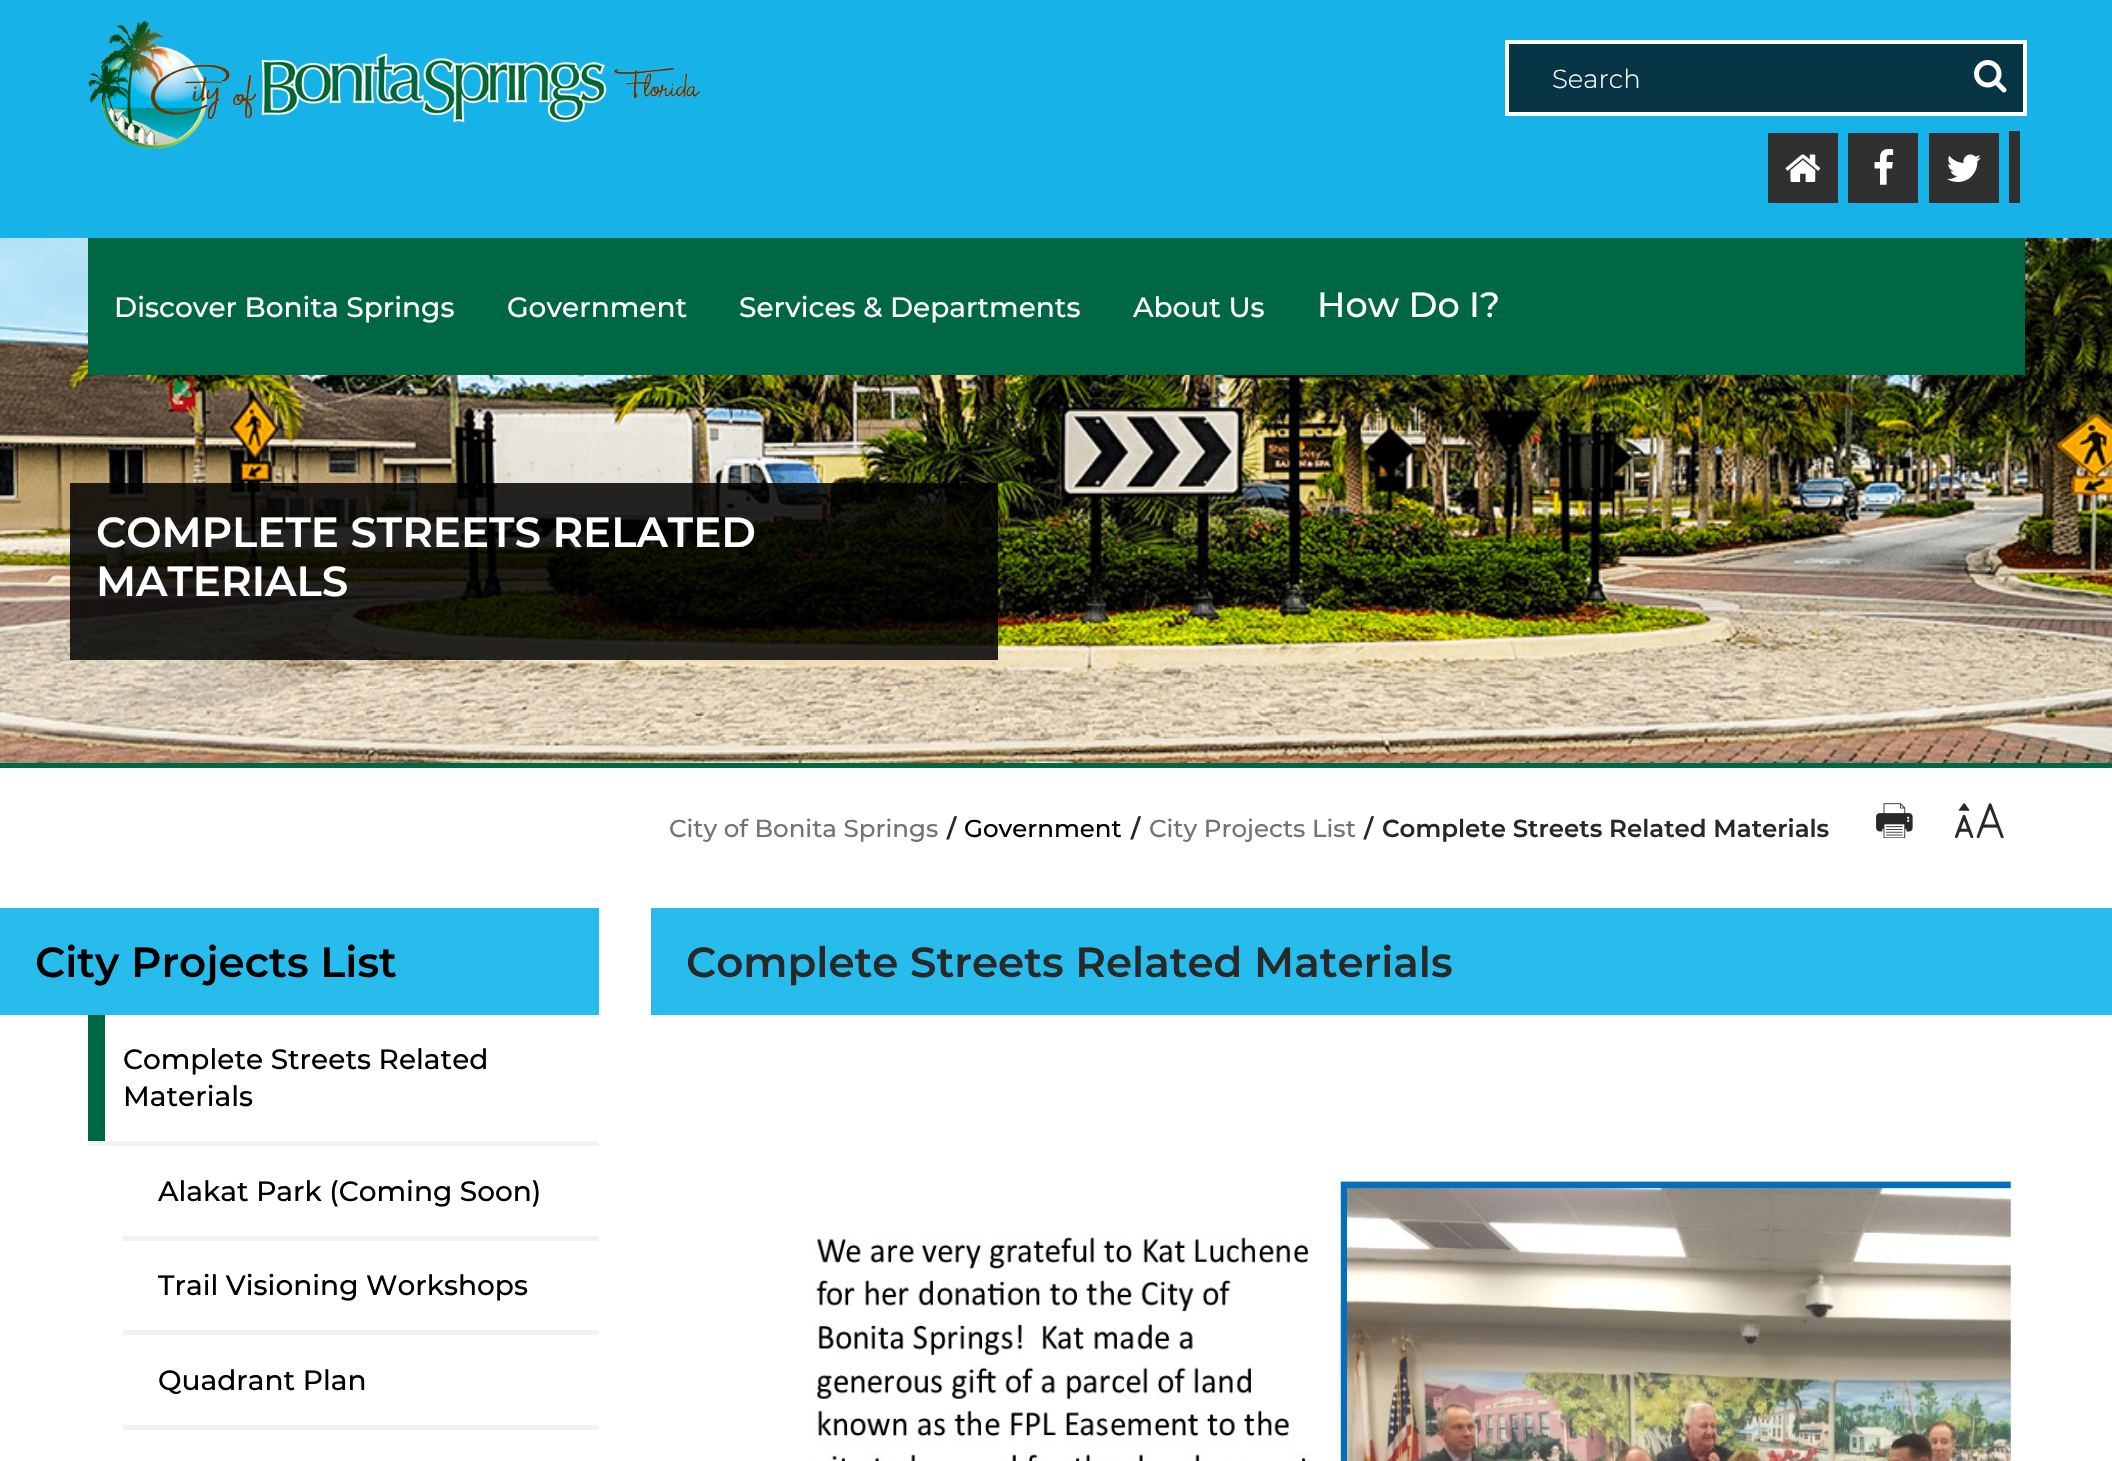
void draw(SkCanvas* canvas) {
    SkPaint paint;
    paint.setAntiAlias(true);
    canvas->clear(0xFFFFFFFF);
    paint.setColor(0xFF17B2E8);
    canvas->drawRect(SkRect::MakeXYWH(0, 0, 2112, 238), paint);
    paint.setColor(0xFF073546);
    canvas->drawRect(SkRect::MakeXYWH(1507, 42, 518, 72), paint);
    paint.setStyle(SkPaint::kStroke_Style);
    paint.setStrokeWidth(4);
    paint.setColor(0xFFFFFFFF);
    canvas->drawRect(SkRect::MakeXYWH(1507, 42, 518, 72), paint);
    SkFont font1(fontMgr->matchFamilyStyle("Montserrat", SkFontStyle(300, SkFontStyle::kNormal_Width, SkFontStyle::kUpright_Slant)), 26);
    font1.setSubpixel(true);
    paint.setStyle(SkPaint::kFill_Style);
    canvas->drawString("Search", 1552, 88, font1, paint);
    canvas->drawImageRect(SkImages::DeferredFromEncodedData(SkData::MakeFromFileName("img1.png")), SkRect::MakeXYWH(1974, 60, 33, 33), SkSamplingOptions());
    paint.setColor(0xFF303030);
    canvas->drawRect(SkRect::MakeXYWH(1768, 133, 70, 70), paint);
    canvas->drawImageRect(SkImages::DeferredFromEncodedData(SkData::MakeFromFileName("img2.png")), SkRect::MakeXYWH(1785, 154, 36, 28), SkSamplingOptions());
    canvas->drawRect(SkRect::MakeXYWH(1848, 133, 70, 70), paint);
    canvas->drawImageRect(SkImages::DeferredFromEncodedData(SkData::MakeFromFileName("img3.png")), SkRect::MakeXYWH(1874, 149, 20, 36), SkSamplingOptions());
    canvas->drawRect(SkRect::MakeXYWH(1929, 133, 70, 70), paint);
    canvas->drawImageRect(SkImages::DeferredFromEncodedData(SkData::MakeFromFileName("img4.png")), SkRect::MakeXYWH(1947, 154, 34, 28), SkSamplingOptions());
    canvas->drawRect(SkRect::MakeXYWH(2009, 131, 11, 72), paint);
    canvas->drawImageRect(SkImages::DeferredFromEncodedData(SkData::MakeFromFileName("img5.png")), SkRect::MakeXYWH(87, 19, 613, 130), SkSamplingOptions());
    canvas->drawImageRect(SkImages::DeferredFromEncodedData(SkData::MakeFromFileName("img6.png")), SkRect::MakeXYWH(0, 238, 2112, 525), SkSamplingOptions());
    paint.setColor(0xFF006745);
    canvas->drawRect(SkRect::MakeXYWH(88, 238, 1937, 137), paint);
    SkFont font2(fontMgr->matchFamilyStyle("Montserrat", SkFontStyle(500, SkFontStyle::kNormal_Width, SkFontStyle::kUpright_Slant)), 28);
    font2.setSubpixel(true);
    paint.setColor(0xFFFFFFFF);
    canvas->drawString("Discover Bonita Springs", 114, 317, font2, paint);
    canvas->drawString("Government", 507, 317, font2, paint);
    canvas->drawString("Services & Departments", 739, 317, font2, paint);
    canvas->drawString("About Us", 1133, 317, font2, paint);
    SkFont font3(fontMgr->matchFamilyStyle("Montserrat", SkFontStyle(500, SkFontStyle::kNormal_Width, SkFontStyle::kUpright_Slant)), 35);
    font3.setSubpixel(true);
    canvas->drawString("How Do I?", 1317, 317, font3, paint);
    paint.setColor(0xFF006745);
    canvas->drawRect(SkRect::MakeXYWH(0, 763, 2112, 5), paint);
    paint.setColor(0xD9000000);
    canvas->drawRect(SkRect::MakeXYWH(70, 483, 928, 177), paint);
    SkFont font4(fontMgr->matchFamilyStyle("Montserrat", SkFontStyle(600, SkFontStyle::kNormal_Width, SkFontStyle::kUpright_Slant)), 42);
    font4.setSubpixel(true);
    paint.setColor(0xFFFFFFFF);
    canvas->drawString("COMPLETE STREETS RELATED", 96, 547, font4, paint);
    canvas->drawString("MATERIALS", 96, 596, font4, paint);
    SkFont font5(fontMgr->matchFamilyStyle("Montserrat", SkFontStyle(500, SkFontStyle::kNormal_Width, SkFontStyle::kUpright_Slant)), 24.5f);
    font5.setSubpixel(true);
    paint.setColor(0xFF727373);
    canvas->drawString("City of Bonita Springs", 669, 837, font5, paint);
    SkFont font6(fontMgr->matchFamilyStyle("Montserrat", SkFontStyle(600, SkFontStyle::kNormal_Width, SkFontStyle::kUpright_Slant)), 24.5f);
    font6.setSubpixel(true);
    paint.setColor(0xFF282828);
    canvas->drawString("/", 947, 837, font6, paint);
    paint.setColor(0xFF000000);
    canvas->drawString("Government", 964, 837, font5, paint);
    paint.setColor(0xFF282828);
    canvas->drawString("/", 1131, 837, font6, paint);
    paint.setColor(0xFF727373);
    canvas->drawString("City Projects List", 1149, 837, font5, paint);
    paint.setColor(0xFF282828);
    canvas->drawString("/", 1364, 837, font6, paint);
    canvas->drawString("Complete Streets Related Materials", 1382, 837, font6, paint);
    canvas->drawImageRect(SkImages::DeferredFromEncodedData(SkData::MakeFromFileName("img7.png")), SkRect::MakeXYWH(1876, 803, 37, 35), SkSamplingOptions());
    canvas->drawImageRect(SkImages::DeferredFromEncodedData(SkData::MakeFromFileName("img8.png")), SkRect::MakeXYWH(1955, 803, 49, 35), SkSamplingOptions());
    paint.setColor(0xFF28BCEC);
    canvas->drawRect(SkRect::MakeXYWH(651, 908, 1461, 107), paint);
    paint.setColor(0xFF282828);
    canvas->drawString("Complete Streets Related Materials", 686, 977, font4, paint);
    canvas->drawImageRect(SkImages::DeferredFromEncodedData(SkData::MakeFromFileName("img9.png")), SkRect::MakeXYWH(813, 1174, 1198, 287), SkSamplingOptions());
    paint.setColor(0xFF28BCEC);
    canvas->drawRect(SkRect::MakeXYWH(0, 908, 599, 107), paint);
    paint.setColor(0xFF000000);
    canvas->drawString("City Projects List", 35, 977, font4, paint);
    paint.setColor(0xFFF2F2F2);
    canvas->drawRect(SkRect::MakeXYWH(88, 1141, 511, 5), paint);
    paint.setColor(0xFF006745);
    canvas->drawRect(SkRect::MakeXYWH(88, 1015, 17, 126), paint);
    paint.setColor(0xFF000000);
    canvas->drawString("Complete Streets Related", 123, 1069, font2, paint);
    canvas->drawString("Materials", 123, 1106, font2, paint);
    paint.setColor(0xFFF2F2F2);
    canvas->drawRect(SkRect::MakeXYWH(123, 1236, 476, 5), paint);
    paint.setColor(0xFF000000);
    canvas->drawString("Alakat Park (Coming Soon)", 158, 1201, font2, paint);
    paint.setColor(0xFFF2F2F2);
    canvas->drawRect(SkRect::MakeXYWH(123, 1330, 476, 5), paint);
    paint.setColor(0xFF000000);
    canvas->drawString("Trail Visioning Workshops", 158, 1295, font2, paint);
    paint.setColor(0xFFF2F2F2);
    canvas->drawRect(SkRect::MakeXYWH(123, 1425, 476, 5), paint);
    paint.setColor(0xFF000000);
    canvas->drawString("Quadrant Plan", 158, 1390, font2, paint);
}
